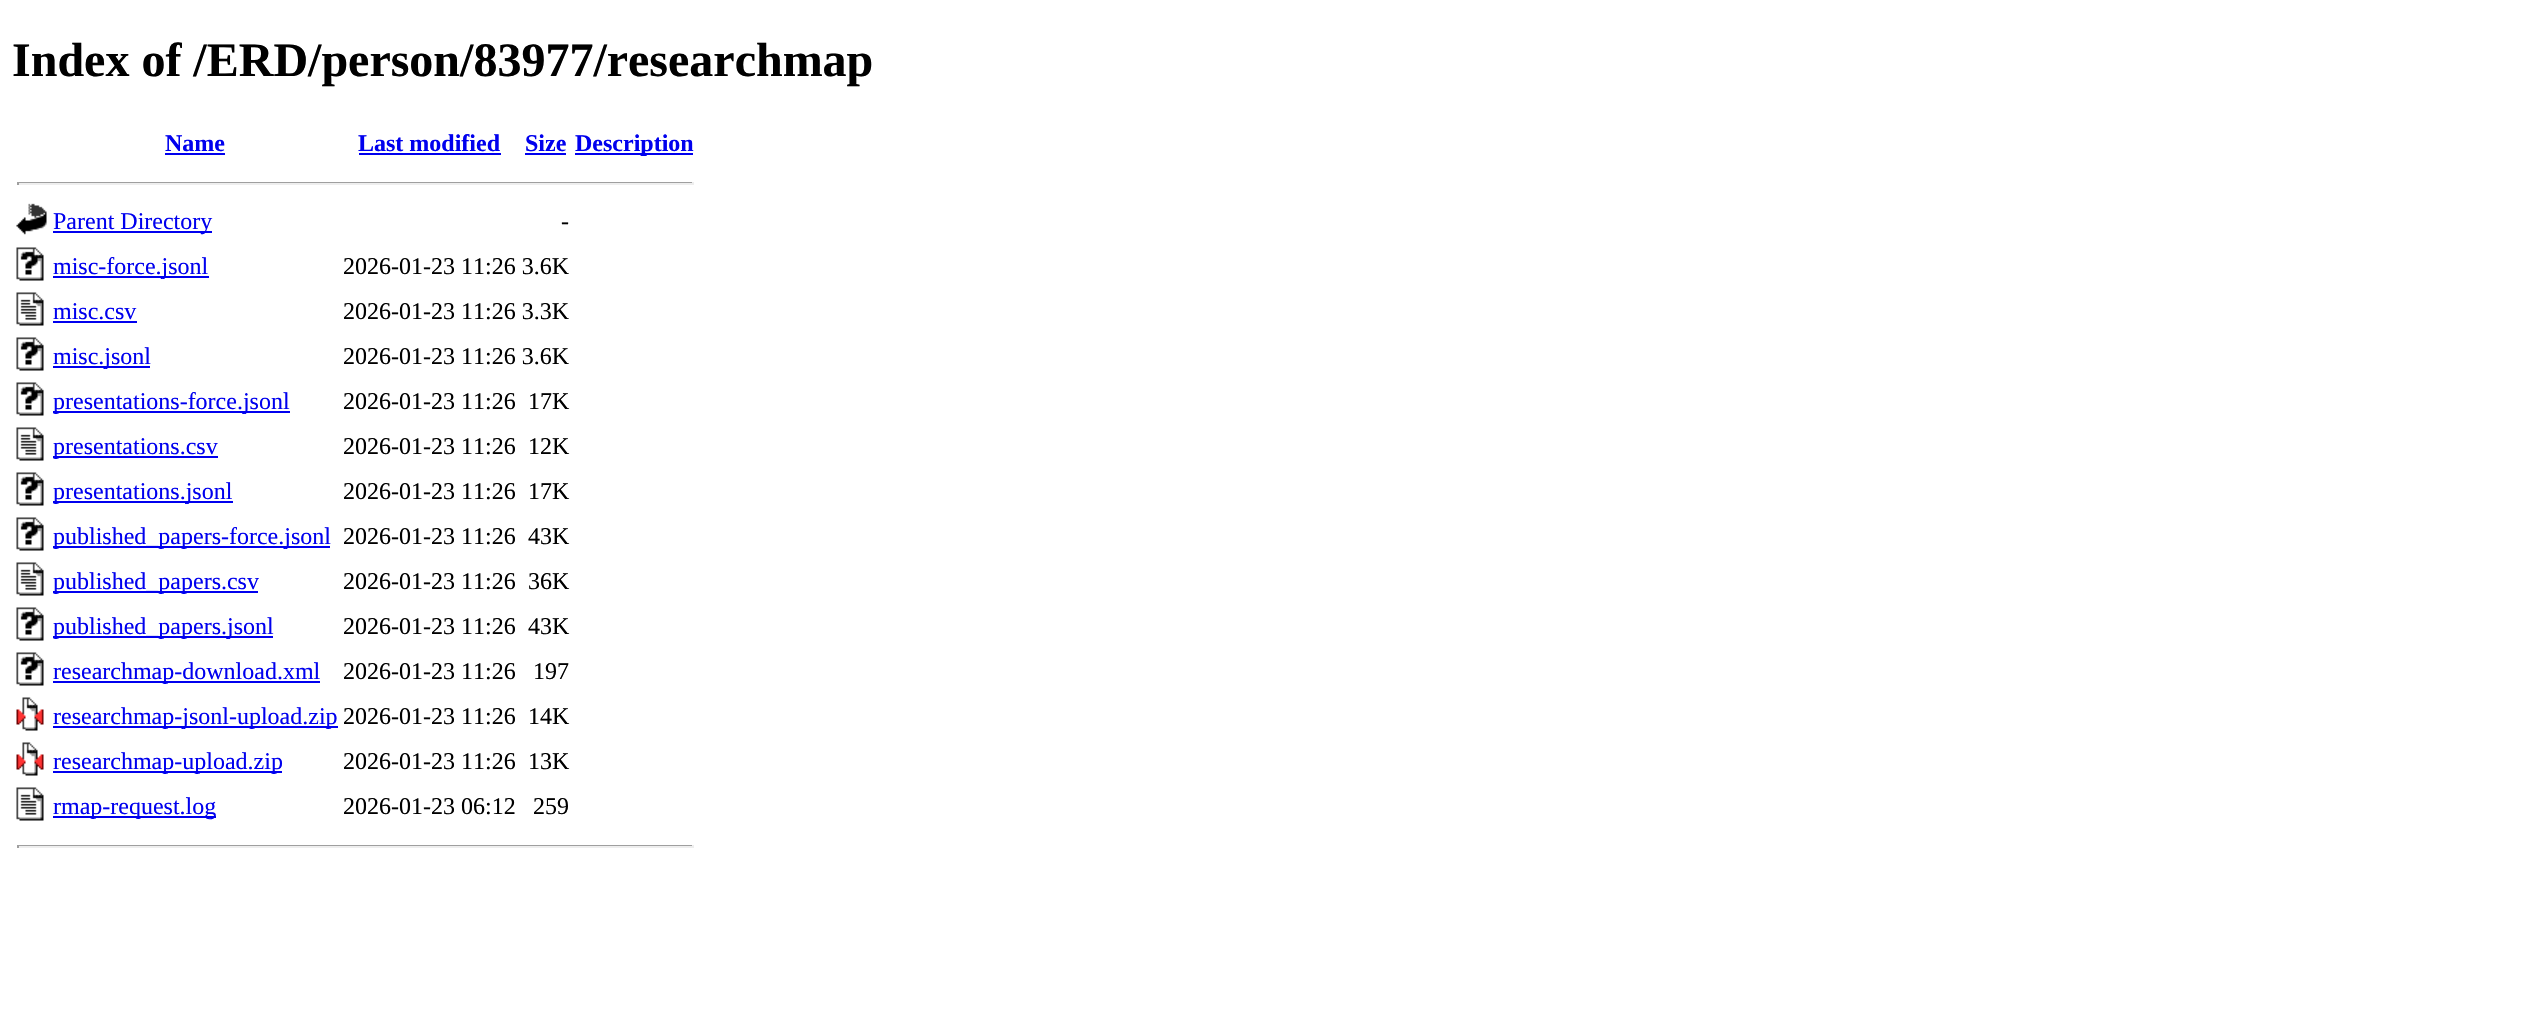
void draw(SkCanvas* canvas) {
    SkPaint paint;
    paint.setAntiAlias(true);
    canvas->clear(0xFFFFFFFF);
    SkFont font1(fontMgr->matchFamilyStyle("Liberation Serif", SkFontStyle::Bold()), 48);
    font1.setSubpixel(true);
    paint.setColor(0xFF000000);
    canvas->drawString("Index of /ERD/person/83977/researchmap", 12, 76, font1, paint);
    SkFont font2(fontMgr->matchFamilyStyle("Liberation Serif", SkFontStyle::Bold()), 24);
    font2.setSubpixel(true);
    paint.setColor(0xFF0000EE);
    canvas->drawString("Name", 165, 151, font2, paint);
    canvas->drawRect(SkRect::MakeXYWH(165, 153, 60, 2), paint);
    canvas->drawString("Last modified", 358, 151, font2, paint);
    canvas->drawRect(SkRect::MakeXYWH(359, 153, 142, 2), paint);
    canvas->drawString("Size", 525, 151, font2, paint);
    canvas->drawRect(SkRect::MakeXYWH(525, 153, 41, 2), paint);
    canvas->drawRect(SkRect::MakeXYWH(575, 153, 118, 2), paint);
    canvas->drawString("Description", 575, 151, font2, paint);
    paint.setColor(0xFF9F9F9F);
    canvas->drawRect(SkRect::MakeXYWH(17, 182, 676, 1), paint);
    paint.setColor(0xFFEEEEEE);
    canvas->drawRect(SkRect::MakeXYWH(692, 182, 2, 3), paint);
    canvas->drawRect(SkRect::MakeXYWH(17, 183, 676, 2), paint);
    paint.setColor(0xFF9F9F9F);
    canvas->drawRect(SkRect::MakeXYWH(17, 182, 2, 3), paint);
    canvas->drawImageRect(SkImages::DeferredFromEncodedData(SkData::MakeFromFileName("img1.png")), SkRect::MakeXYWH(16, 203, 31, 32), SkSamplingOptions());
    paint.setColor(0xFF0000EE);
    canvas->drawRect(SkRect::MakeXYWH(53, 231, 159, 2), paint);
    SkFont font3(fontMgr->matchFamilyStyle("Liberation Serif", SkFontStyle::Normal()), 24);
    font3.setSubpixel(true);
    canvas->drawString("Parent Directory", 53, 229, font3, paint);
    paint.setColor(0xFF000000);
    canvas->drawString("-", 561, 229, font3, paint);
    canvas->drawImageRect(SkImages::DeferredFromEncodedData(SkData::MakeFromFileName("img2.png")), SkRect::MakeXYWH(16, 247, 28, 34), SkSamplingOptions());
    paint.setColor(0xFF0000EE);
    canvas->drawRect(SkRect::MakeXYWH(53, 276, 156, 2), paint);
    canvas->drawString("misc-force.jsonl", 53, 274, font3, paint);
    paint.setColor(0xFF000000);
    canvas->drawString("2026-01-23 11:26 3.6K", 343, 274, font3, paint);
    canvas->drawImageRect(SkImages::DeferredFromEncodedData(SkData::MakeFromFileName("img3.png")), SkRect::MakeXYWH(16, 292, 28, 34), SkSamplingOptions());
    paint.setColor(0xFF0000EE);
    canvas->drawString("misc.csv", 53, 319, font3, paint);
    canvas->drawRect(SkRect::MakeXYWH(53, 321, 84, 2), paint);
    paint.setColor(0xFF000000);
    canvas->drawString("2026-01-23 11:26 3.3K", 343, 319, font3, paint);
    canvas->drawImageRect(SkImages::DeferredFromEncodedData(SkData::MakeFromFileName("img2.png")), SkRect::MakeXYWH(16, 337, 28, 34), SkSamplingOptions());
    paint.setColor(0xFF0000EE);
    canvas->drawRect(SkRect::MakeXYWH(53, 366, 97, 2), paint);
    canvas->drawString("misc.jsonl", 53, 364, font3, paint);
    paint.setColor(0xFF000000);
    canvas->drawString("2026-01-23 11:26 3.6K", 343, 364, font3, paint);
    canvas->drawImageRect(SkImages::DeferredFromEncodedData(SkData::MakeFromFileName("img2.png")), SkRect::MakeXYWH(16, 382, 28, 34), SkSamplingOptions());
    paint.setColor(0xFF0000EE);
    canvas->drawRect(SkRect::MakeXYWH(53, 411, 237, 2), paint);
    canvas->drawString("presentations-force.jsonl", 53, 409, font3, paint);
    paint.setColor(0xFF000000);
    canvas->drawString("2026-01-23 11:26", 343, 409, font3, paint);
    canvas->drawString("17K", 528, 409, font3, paint);
    canvas->drawImageRect(SkImages::DeferredFromEncodedData(SkData::MakeFromFileName("img3.png")), SkRect::MakeXYWH(16, 427, 28, 34), SkSamplingOptions());
    paint.setColor(0xFF0000EE);
    canvas->drawRect(SkRect::MakeXYWH(53, 456, 165, 2), paint);
    canvas->drawString("presentations.csv", 53, 454, font3, paint);
    paint.setColor(0xFF000000);
    canvas->drawString("2026-01-23 11:26", 343, 454, font3, paint);
    canvas->drawString("12K", 528, 454, font3, paint);
    canvas->drawImageRect(SkImages::DeferredFromEncodedData(SkData::MakeFromFileName("img2.png")), SkRect::MakeXYWH(16, 472, 28, 34), SkSamplingOptions());
    paint.setColor(0xFF0000EE);
    canvas->drawRect(SkRect::MakeXYWH(53, 501, 180, 2), paint);
    canvas->drawString("presentations.jsonl", 53, 499, font3, paint);
    paint.setColor(0xFF000000);
    canvas->drawString("2026-01-23 11:26", 343, 499, font3, paint);
    canvas->drawString("17K", 528, 499, font3, paint);
    canvas->drawImageRect(SkImages::DeferredFromEncodedData(SkData::MakeFromFileName("img2.png")), SkRect::MakeXYWH(16, 517, 28, 34), SkSamplingOptions());
    paint.setColor(0xFF0000EE);
    canvas->drawRect(SkRect::MakeXYWH(53, 546, 277, 2), paint);
    canvas->drawString("published_papers-force.jsonl", 53, 544, font3, paint);
    paint.setColor(0xFF000000);
    canvas->drawString("2026-01-23 11:26", 343, 544, font3, paint);
    canvas->drawString("43K", 528, 544, font3, paint);
    canvas->drawImageRect(SkImages::DeferredFromEncodedData(SkData::MakeFromFileName("img3.png")), SkRect::MakeXYWH(16, 562, 28, 34), SkSamplingOptions());
    paint.setColor(0xFF0000EE);
    canvas->drawRect(SkRect::MakeXYWH(53, 591, 205, 2), paint);
    canvas->drawString("published_papers.csv", 53, 589, font3, paint);
    paint.setColor(0xFF000000);
    canvas->drawString("2026-01-23 11:26", 343, 589, font3, paint);
    canvas->drawString("36K", 528, 589, font3, paint);
    canvas->drawImageRect(SkImages::DeferredFromEncodedData(SkData::MakeFromFileName("img2.png")), SkRect::MakeXYWH(16, 607, 28, 34), SkSamplingOptions());
    paint.setColor(0xFF0000EE);
    canvas->drawRect(SkRect::MakeXYWH(53, 636, 220, 2), paint);
    canvas->drawString("published_papers.jsonl", 53, 634, font3, paint);
    paint.setColor(0xFF000000);
    canvas->drawString("2026-01-23 11:26", 343, 634, font3, paint);
    canvas->drawString("43K", 528, 634, font3, paint);
    canvas->drawImageRect(SkImages::DeferredFromEncodedData(SkData::MakeFromFileName("img2.png")), SkRect::MakeXYWH(16, 652, 28, 34), SkSamplingOptions());
    paint.setColor(0xFF0000EE);
    canvas->drawRect(SkRect::MakeXYWH(53, 681, 267, 2), paint);
    canvas->drawString("researchmap-download.xml", 53, 679, font3, paint);
    paint.setColor(0xFF000000);
    canvas->drawString("2026-01-23 11:26", 343, 679, font3, paint);
    canvas->drawString("197", 533, 679, font3, paint);
    canvas->drawImageRect(SkImages::DeferredFromEncodedData(SkData::MakeFromFileName("img4.png")), SkRect::MakeXYWH(16, 697, 28, 34), SkSamplingOptions());
    paint.setColor(0xFF0000EE);
    canvas->drawRect(SkRect::MakeXYWH(53, 726, 285, 2), paint);
    canvas->drawString("researchmap-jsonl-upload.zip", 53, 724, font3, paint);
    paint.setColor(0xFF000000);
    canvas->drawString("2026-01-23 11:26", 343, 724, font3, paint);
    canvas->drawString("14K", 528, 724, font3, paint);
    canvas->drawImageRect(SkImages::DeferredFromEncodedData(SkData::MakeFromFileName("img4.png")), SkRect::MakeXYWH(16, 742, 28, 34), SkSamplingOptions());
    paint.setColor(0xFF0000EE);
    canvas->drawRect(SkRect::MakeXYWH(53, 771, 229, 2), paint);
    canvas->drawString("researchmap-upload.zip", 53, 769, font3, paint);
    paint.setColor(0xFF000000);
    canvas->drawString("2026-01-23 11:26", 343, 769, font3, paint);
    canvas->drawString("13K", 528, 769, font3, paint);
    canvas->drawImageRect(SkImages::DeferredFromEncodedData(SkData::MakeFromFileName("img3.png")), SkRect::MakeXYWH(16, 787, 28, 34), SkSamplingOptions());
    paint.setColor(0xFF0000EE);
    canvas->drawRect(SkRect::MakeXYWH(53, 816, 163, 2), paint);
    canvas->drawString("rmap-request.log", 53, 814, font3, paint);
    paint.setColor(0xFF000000);
    canvas->drawString("2026-01-23 06:12", 343, 814, font3, paint);
    canvas->drawString("259", 533, 814, font3, paint);
    paint.setColor(0xFF9F9F9F);
    canvas->drawRect(SkRect::MakeXYWH(17, 845, 676, 1), paint);
    paint.setColor(0xFFEEEEEE);
    canvas->drawRect(SkRect::MakeXYWH(692, 845, 2, 3), paint);
    canvas->drawRect(SkRect::MakeXYWH(17, 846, 676, 2), paint);
    paint.setColor(0xFF9F9F9F);
    canvas->drawRect(SkRect::MakeXYWH(17, 845, 2, 3), paint);
}
